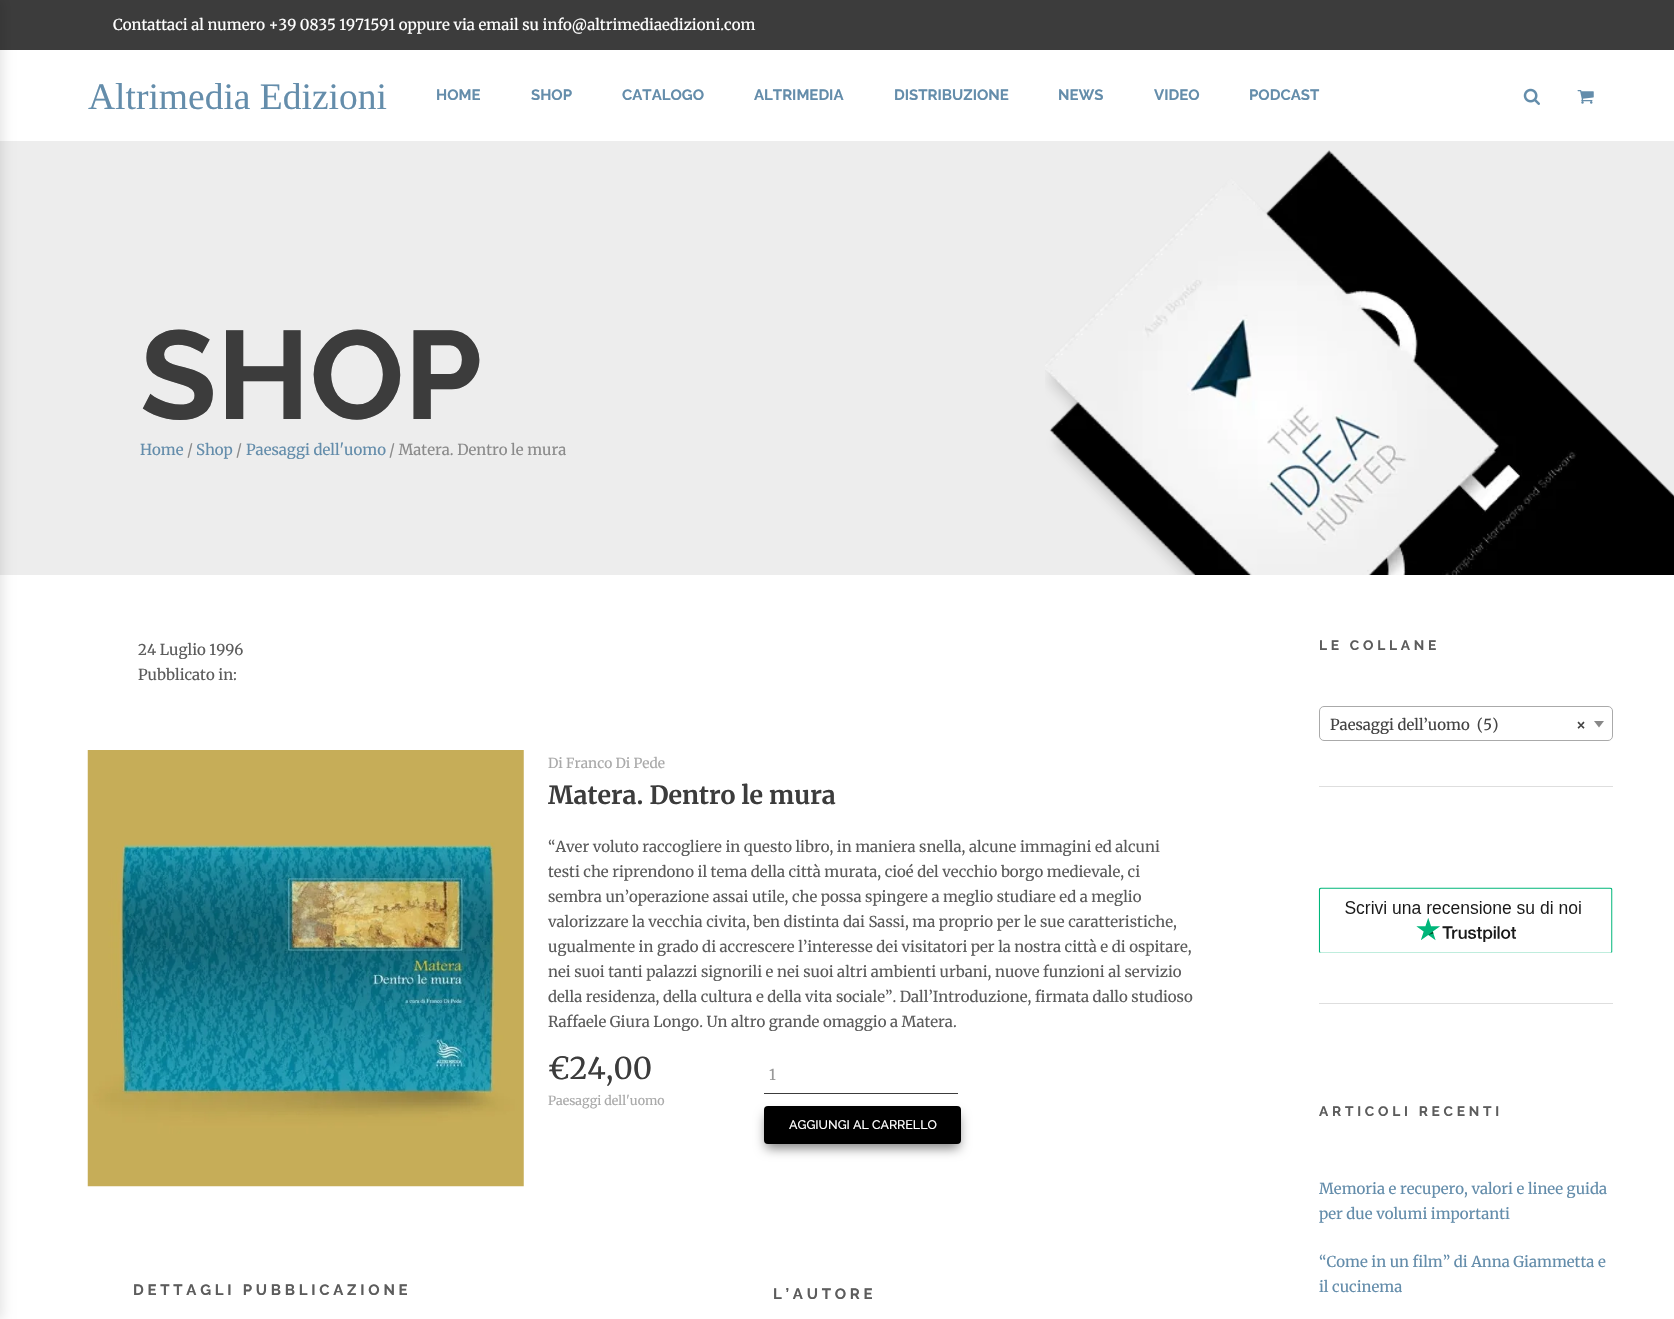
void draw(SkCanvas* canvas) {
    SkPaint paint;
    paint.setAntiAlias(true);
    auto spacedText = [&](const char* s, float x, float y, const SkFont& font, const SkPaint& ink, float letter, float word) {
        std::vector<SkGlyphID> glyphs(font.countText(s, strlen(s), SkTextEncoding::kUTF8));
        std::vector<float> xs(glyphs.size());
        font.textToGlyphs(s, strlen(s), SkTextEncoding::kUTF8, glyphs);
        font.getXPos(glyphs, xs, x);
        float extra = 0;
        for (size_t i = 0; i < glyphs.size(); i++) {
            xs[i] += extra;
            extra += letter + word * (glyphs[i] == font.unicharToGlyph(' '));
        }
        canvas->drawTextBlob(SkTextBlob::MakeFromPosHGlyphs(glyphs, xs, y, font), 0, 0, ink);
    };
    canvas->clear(0xFFFFFFFF);
    paint.setColor(0xFF3C3C3C);
    canvas->drawRect(SkRect::MakeXYWH(0, 0, 1674, 50), paint);
    paint.setColor(0xFFEDEDED);
    canvas->drawRect(SkRect::MakeXYWH(0, 141, 1674, 434), paint);
    paint.setColor(0x1A000000);
    paint.setMaskFilter(SkMaskFilter::MakeBlur(kNormal_SkBlurStyle, 6));
    canvas->drawRect(SkRect::MakeXYWH(-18, 0, 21, 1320), paint);
    paint.setMaskFilter(nullptr);
    SkFont font1(fontMgr->matchFamilyStyle("Merriweather", SkFontStyle::Normal()), 15);
    font1.setSubpixel(true);
    paint.setColor(0xFFFFFFFF);
    canvas->drawString("Contattaci al numero +39 0835 1971591 oppure via email su info@altrimediaedizioni.com", 113, 30, font1, paint);
    SkFont font2(fontMgr->matchFamilyStyle("Liberation Serif", SkFontStyle::Normal()), 37.5f);
    font2.setSubpixel(true);
    paint.setColor(0xFF648DAB);
    canvas->drawString("Altrimedia Edizioni", 88, 109, font2, paint);
    SkFont font3(fontMgr->matchFamilyStyle("Raleway", SkFontStyle::Bold()), 15);
    font3.setSubpixel(true);
    canvas->drawString("HOME", 436, 100, font3, paint);
    canvas->drawString("SHOP", 531, 100, font3, paint);
    canvas->drawString("CATALOGO", 622, 100, font3, paint);
    canvas->drawString("ALTRIMEDIA", 754, 100, font3, paint);
    canvas->drawString("DISTRIBUZIONE", 894, 100, font3, paint);
    canvas->drawString("NEWS", 1058, 100, font3, paint);
    canvas->drawString("VIDEO", 1154, 100, font3, paint);
    canvas->drawString("PODCAST", 1249, 100, font3, paint);
    canvas->drawImageRect(SkImages::DeferredFromEncodedData(SkData::MakeFromFileName("img1.png")), SkRect::MakeXYWH(1523, 88, 17, 17), SkSamplingOptions());
    canvas->drawImageRect(SkImages::DeferredFromEncodedData(SkData::MakeFromFileName("img2.png")), SkRect::MakeXYWH(1577, 90, 17, 14), SkSamplingOptions());
    canvas->drawImageRect(SkImages::DeferredFromEncodedData(SkData::MakeFromFileName("img3.png")), SkRect::MakeXYWH(1045, 150, 629, 425), SkSamplingOptions());
    SkFont font4(fontMgr->matchFamilyStyle("Raleway", SkFontStyle::Bold()), 125);
    font4.setSubpixel(true);
    paint.setColor(0xFF3C3C3C);
    canvas->drawString("SHOP", 140, 419, font4, paint);
    paint.setColor(0xFF648DAB);
    canvas->drawString("Home", 140, 455, font1, paint);
    paint.setColor(0xFF8B8B8B);
    canvas->drawString("/", 187, 455, font1, paint);
    paint.setColor(0xFF648DAB);
    canvas->drawString("Shop", 196, 455, font1, paint);
    paint.setColor(0xFF8B8B8B);
    canvas->drawString("/", 236, 455, font1, paint);
    paint.setColor(0xFF648DAB);
    canvas->drawString("Paesaggi dell'uomo", 246, 455, font1, paint);
    paint.setColor(0xFF8B8B8B);
    canvas->drawString("/ Matera. Dentro le mura", 389, 455, font1, paint);
    paint.setColor(0xFF5C5C5C);
    canvas->drawString("24 Luglio 1996", 138, 655, font1, paint);
    canvas->drawString("Pubblicato in:", 138, 680, font1, paint);
    canvas->drawImageRect(SkImages::DeferredFromEncodedData(SkData::MakeFromFileName("img4.png")), SkRect::MakeXYWH(87, 750, 437, 437), SkSamplingOptions());
    SkFont font5(fontMgr->matchFamilyStyle("Merriweather", SkFontStyle::Normal()), 13.75f);
    font5.setSubpixel(true);
    paint.setColor(0xFFAAAAAA);
    canvas->drawString("Di Franco Di Pede", 548, 768, font5, paint);
    SkFont font6(fontMgr->matchFamilyStyle("Merriweather", SkFontStyle::Bold()), 25);
    font6.setSubpixel(true);
    paint.setColor(0xFF3C3C3C);
    canvas->drawString("Matera. Dentro le mura", 548, 804, font6, paint);
    paint.setColor(0xFF5C5C5C);
    canvas->drawString("“Aver voluto raccogliere in questo libro, in maniera snella, alcune immagini ed alcuni", 548, 852, font1, paint);
    canvas->drawString("testi che riprendono il tema della città murata, cioé del vecchio borgo medievale, ci", 548, 877, font1, paint);
    canvas->drawString("sembra un’operazione assai utile, che possa spingere a meglio studiare ed a meglio", 548, 902, font1, paint);
    canvas->drawString("valorizzare la vecchia civita, ben distinta dai Sassi, ma proprio per le sue caratteristiche,", 548, 927, font1, paint);
    canvas->drawString("ugualmente in grado di accrescere l’interesse dei visitatori per la nostra città e di ospitare,", 548, 952, font1, paint);
    canvas->drawString("nei suoi tanti palazzi signorili e nei suoi altri ambienti urbani, nuove funzioni al servizio", 548, 977, font1, paint);
    canvas->drawString("della residenza, della cultura e della vita sociale”. Dall’Introduzione, firmata dallo studioso", 548, 1002, font1, paint);
    canvas->drawString("Raffaele Giura Longo. Un altro grande omaggio a Matera.", 548, 1027, font1, paint);
    SkFont font7(fontMgr->matchFamilyStyle("Merriweather", SkFontStyle::Normal()), 30);
    font7.setSubpixel(true);
    paint.setColor(0xFF3C3C3C);
    canvas->drawString("€24,00", 548, 1079, font7, paint);
    SkFont font8(fontMgr->matchFamilyStyle("Merriweather", SkFontStyle::Normal()), 12.5f);
    font8.setSubpixel(true);
    paint.setColor(0xFFAAAAAA);
    canvas->drawString("Paesaggi dell'uomo", 548, 1105, font8, paint);
    paint.setColor(0xFF3C3C3C);
    canvas->drawRect(SkRect::MakeXYWH(764, 1093, 194, 1), paint);
    paint.setColor(0xFF999999);
    canvas->drawString("1", 769, 1080, font1, paint);
    paint.setColor(0x80000000);
    paint.setMaskFilter(SkMaskFilter::MakeBlur(kNormal_SkBlurStyle, 6));
    canvas->drawRoundRect(SkRect::MakeXYWH(766, 1115, 193, 33), 1, 1, paint);
    paint.setMaskFilter(nullptr);
    paint.setColor(0xFF000000);
    canvas->drawRoundRect(SkRect::MakeXYWH(764, 1106, 197, 38), 4, 4, paint);
    SkFont font9(fontMgr->matchFamilyStyle("Raleway", SkFontStyle(500, SkFontStyle::kNormal_Width, SkFontStyle::kUpright_Slant)), 12.5f);
    font9.setSubpixel(true);
    paint.setColor(0xFFFFFFFF);
    canvas->drawString("AGGIUNGI AL CARRELLO", 789, 1129, font9, paint);
    paint.setColor(0xFF5C5C5C);
    spacedText("DETTAGLI PUBBLICAZIONE", 133, 1295, font3, paint, 3.75f, 0);
    spacedText("L’AUTORE", 773, 1299, font3, paint, 3.75f, 0);
    paint.setColor(0xFFDEDEDE);
    canvas->drawRect(SkRect::MakeXYWH(1319, 786, 294, 1), paint);
    SkFont font10(fontMgr->matchFamilyStyle("Raleway", SkFontStyle::Bold()), 13.75f);
    font10.setSubpixel(true);
    paint.setColor(0xFF5C5C5C);
    spacedText("LE COLLANE", 1319, 650, font10, paint, 3.75f, 0);
    paint.setStyle(SkPaint::kStroke_Style);
    paint.setStrokeWidth(1);
    paint.setColor(0xFFAAAAAA);
    canvas->drawRoundRect(SkRect::MakeXYWH(1319.5f, 706.5f, 293, 34), 4.5f, 4.5f, paint);
    paint.setStyle(SkPaint::kFill_Style);
    paint.setColor(0xFF444444);
    canvas->drawString("Paesaggi dell’uomo  (5)", 1330, 730, font1, paint);
    SkFont font11(fontMgr->matchFamilyStyle("Merriweather", SkFontStyle::Bold()), 15);
    font11.setSubpixel(true);
    canvas->drawString("×", 1576, 730, font11, paint);
    paint.setColor(0xFF888888);
    canvas->drawPath(SkPathBuilder().moveTo(1594, 721).lineTo(1604, 721).lineTo(1599, 727.5f).close().detach(), paint);
    paint.setColor(0xFFDEDEDE);
    canvas->drawRect(SkRect::MakeXYWH(1319, 1003, 294, 1), paint);
    canvas->drawImageRect(SkImages::DeferredFromEncodedData(SkData::MakeFromFileName("img5.png")), SkRect::MakeXYWH(1318, 887, 295, 66), SkSamplingOptions());
    paint.setColor(0xFF5C5C5C);
    spacedText("ARTICOLI RECENTI", 1319, 1116, font10, paint, 3.75f, 0);
    paint.setColor(0xFF648DAB);
    canvas->drawString("Memoria e recupero, valori e linee guida", 1319, 1194, font1, paint);
    canvas->drawString("per due volumi importanti", 1319, 1219, font1, paint);
    canvas->drawString("“Come in un film” di Anna Giammetta e", 1319, 1267, font1, paint);
    canvas->drawString("il cucinema", 1319, 1292, font1, paint);
}
